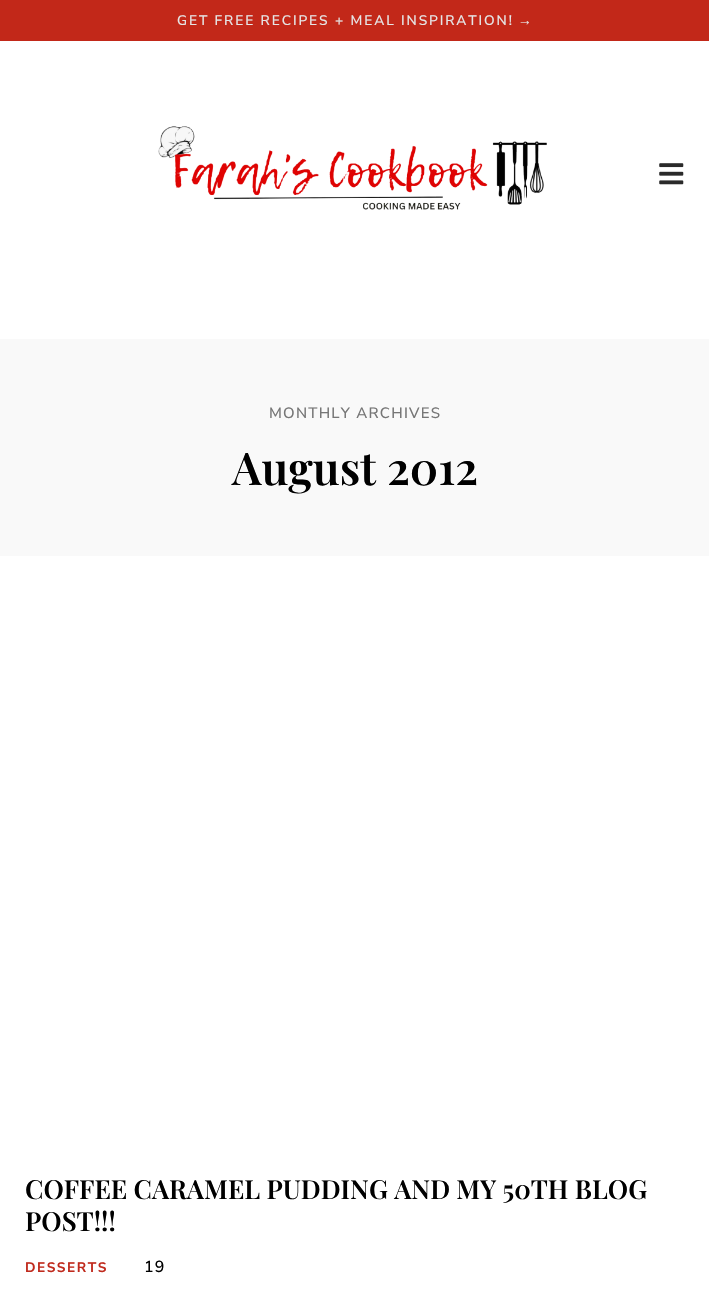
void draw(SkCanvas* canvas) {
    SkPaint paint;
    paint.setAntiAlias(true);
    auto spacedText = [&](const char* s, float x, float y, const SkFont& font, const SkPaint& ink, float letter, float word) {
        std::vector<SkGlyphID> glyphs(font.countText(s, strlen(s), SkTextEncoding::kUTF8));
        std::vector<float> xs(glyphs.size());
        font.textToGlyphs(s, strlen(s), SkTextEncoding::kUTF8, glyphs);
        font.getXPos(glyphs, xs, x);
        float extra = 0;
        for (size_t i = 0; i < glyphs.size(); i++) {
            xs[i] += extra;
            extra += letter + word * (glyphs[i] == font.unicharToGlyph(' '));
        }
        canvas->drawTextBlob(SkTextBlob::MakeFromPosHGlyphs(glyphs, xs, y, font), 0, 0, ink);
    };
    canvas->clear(0xFFFFFFFF);
    paint.setColor(0xFFC22819);
    canvas->drawRect(SkRect::MakeXYWH(0, 0, 709, 41), paint);
    SkFont font1(fontMgr->matchFamilyStyle("Nunito Sans", SkFontStyle(500, SkFontStyle::kNormal_Width, SkFontStyle::kUpright_Slant)), 13.75f);
    font1.setSubpixel(true);
    paint.setColor(0xFFE6E6E6);
    spacedText("GET FREE RECIPES + MEAL INSPIRATION!", 177, 25, font1, paint, 1.9f, 0);
    SkFont font2(fontMgr->matchFamilyStyle("Liberation Sans", SkFontStyle::Normal()), 13.75f);
    font2.setSubpixel(true);
    spacedText("→", 518, 25, font2, paint, 1.9f, 0);
    canvas->drawImageRect(SkImages::DeferredFromEncodedData(SkData::MakeFromFileName("img1.png")), SkRect::MakeXYWH(158, 126, 389, 84), SkSamplingOptions());
    canvas->drawImageRect(SkImages::DeferredFromEncodedData(SkData::MakeFromFileName("img2.png")), SkRect::MakeXYWH(659, 163, 25, 22), SkSamplingOptions());
    paint.setColor(0xFFF9F9F9);
    canvas->drawRect(SkRect::MakeXYWH(0, 339, 709, 217), paint);
    SkFont font3(fontMgr->matchFamilyStyle("Nunito Sans", SkFontStyle(500, SkFontStyle::kNormal_Width, SkFontStyle::kUpright_Slant)), 15);
    font3.setSubpixel(true);
    paint.setColor(0xFF767676);
    spacedText("MONTHLY ARCHIVES", 269, 418, font3, paint, 1.25f, 0);
    SkFont font4(fontMgr->matchFamilyStyle("Playfair Display", SkFontStyle(600, SkFontStyle::kNormal_Width, SkFontStyle::kUpright_Slant)), 45);
    font4.setSubpixel(true);
    paint.setColor(0xFF000000);
    canvas->drawString("August 2012", 232, 485, font4, paint);
    SkFont font5(fontMgr->matchFamilyStyle("Playfair Display", SkFontStyle(600, SkFontStyle::kNormal_Width, SkFontStyle::kUpright_Slant)), 26.25f);
    font5.setSubpixel(true);
    canvas->drawString("COFFEE CARAMEL PUDDING AND MY 50TH BLOG", 25, 1199, font5, paint);
    canvas->drawString("POST!!!", 25, 1231, font5, paint);
    SkFont font6(fontMgr->matchFamilyStyle("Nunito Sans", SkFontStyle::Bold()), 13.75f);
    font6.setSubpixel(true);
    paint.setColor(0xFFC02A1D);
    spacedText("DESSERTS", 25, 1272, font6, paint, 1.5f, 0);
    SkFont font7(fontMgr->matchFamilyStyle("Nunito Sans", SkFontStyle(500, SkFontStyle::kNormal_Width, SkFontStyle::kUpright_Slant)), 16);
    font7.setSubpixel(true);
    paint.setColor(0xFF000000);
    spacedText("19", 144, 1272, font7, paint, 1.25f, 0);
}
